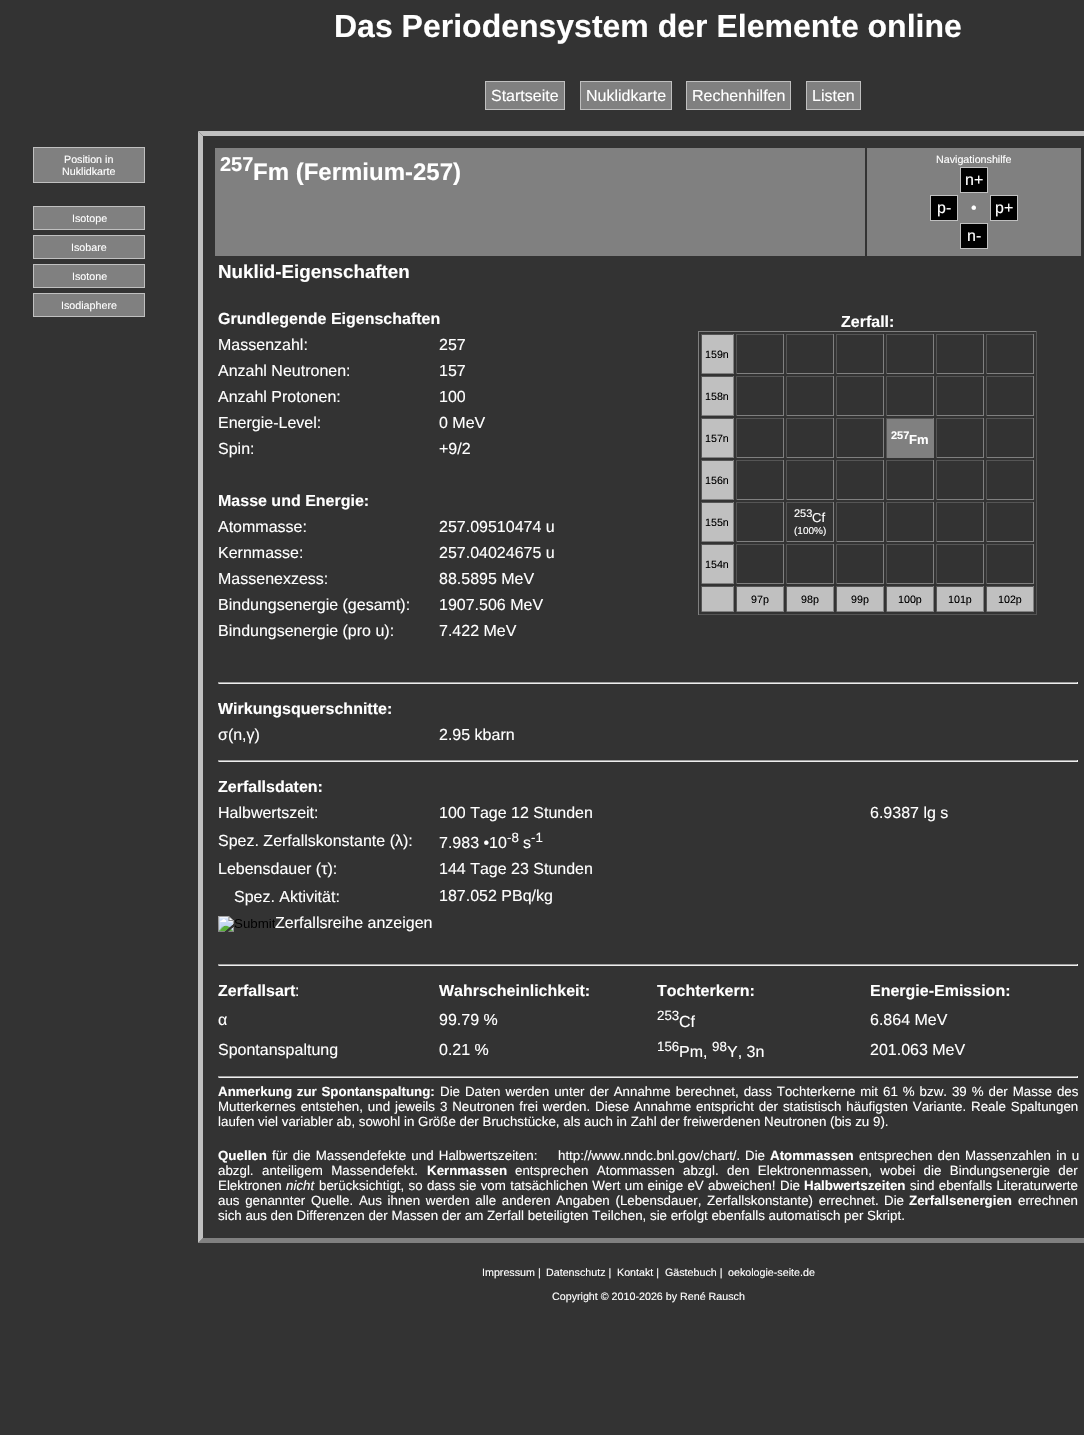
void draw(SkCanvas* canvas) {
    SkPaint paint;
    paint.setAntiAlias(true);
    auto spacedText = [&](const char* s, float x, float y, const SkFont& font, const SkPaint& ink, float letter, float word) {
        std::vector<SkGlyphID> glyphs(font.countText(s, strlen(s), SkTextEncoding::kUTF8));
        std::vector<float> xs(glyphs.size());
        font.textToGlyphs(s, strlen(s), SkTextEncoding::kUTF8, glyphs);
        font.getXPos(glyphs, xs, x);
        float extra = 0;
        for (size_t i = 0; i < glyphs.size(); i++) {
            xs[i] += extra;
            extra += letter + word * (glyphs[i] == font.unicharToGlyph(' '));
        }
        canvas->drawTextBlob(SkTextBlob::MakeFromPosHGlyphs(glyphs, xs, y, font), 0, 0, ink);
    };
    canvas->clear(0xFF333333);
    SkFont font1(fontMgr->matchFamilyStyle("Liberation Sans", SkFontStyle::Bold()), 32);
    font1.setSubpixel(true);
    paint.setColor(0xFFFFFFFF);
    canvas->drawString("Das Periodensystem der Elemente online", 334, 37, font1, paint);
    paint.setColor(0xFF808080);
    canvas->drawRect(SkRect::MakeXYWH(485.5f, 81.5f, 79, 28), paint);
    paint.setStyle(SkPaint::kStroke_Style);
    paint.setStrokeWidth(1);
    paint.setColor(0xFFC0C0C0);
    canvas->drawRect(SkRect::MakeXYWH(485.5f, 81.5f, 79, 28), paint);
    SkFont font2(fontMgr->matchFamilyStyle("Liberation Sans", SkFontStyle::Normal()), 16);
    font2.setSubpixel(true);
    paint.setStyle(SkPaint::kFill_Style);
    paint.setColor(0xFFFFFFFF);
    canvas->drawString("Startseite", 491, 101, font2, paint);
    paint.setColor(0xFF808080);
    canvas->drawRect(SkRect::MakeXYWH(580.5f, 81.5f, 91, 28), paint);
    paint.setStyle(SkPaint::kStroke_Style);
    paint.setColor(0xFFC0C0C0);
    canvas->drawRect(SkRect::MakeXYWH(580.5f, 81.5f, 91, 28), paint);
    paint.setStyle(SkPaint::kFill_Style);
    paint.setColor(0xFFFFFFFF);
    canvas->drawString("Nuklidkarte", 586, 101, font2, paint);
    paint.setColor(0xFF808080);
    canvas->drawRect(SkRect::MakeXYWH(686.5f, 81.5f, 104, 28), paint);
    paint.setStyle(SkPaint::kStroke_Style);
    paint.setColor(0xFFC0C0C0);
    canvas->drawRect(SkRect::MakeXYWH(686.5f, 81.5f, 104, 28), paint);
    paint.setStyle(SkPaint::kFill_Style);
    paint.setColor(0xFFFFFFFF);
    canvas->drawString("Rechenhilfen", 692, 101, font2, paint);
    paint.setColor(0xFF808080);
    canvas->drawRect(SkRect::MakeXYWH(806.5f, 81.5f, 54, 28), paint);
    paint.setStyle(SkPaint::kStroke_Style);
    paint.setColor(0xFFC0C0C0);
    canvas->drawRect(SkRect::MakeXYWH(806.5f, 81.5f, 54, 28), paint);
    paint.setStyle(SkPaint::kFill_Style);
    paint.setColor(0xFFFFFFFF);
    canvas->drawString("Listen", 812, 101, font2, paint);
    paint.setColor(0xFF808080);
    canvas->drawRect(SkRect::MakeXYWH(33.5f, 147.5f, 111, 35), paint);
    paint.setStyle(SkPaint::kStroke_Style);
    paint.setColor(0xFFC0C0C0);
    canvas->drawRect(SkRect::MakeXYWH(33.5f, 147.5f, 111, 35), paint);
    SkFont font3(fontMgr->matchFamilyStyle("Liberation Sans", SkFontStyle::Normal()), 10.7f);
    font3.setSubpixel(true);
    paint.setStyle(SkPaint::kFill_Style);
    paint.setColor(0xFFFFFFFF);
    canvas->drawString("Position in", 64, 163, font3, paint);
    canvas->drawString("Nuklidkarte", 62, 175, font3, paint);
    paint.setColor(0xFF808080);
    canvas->drawRect(SkRect::MakeXYWH(33.5f, 206.5f, 111, 23), paint);
    paint.setStyle(SkPaint::kStroke_Style);
    paint.setColor(0xFFC0C0C0);
    canvas->drawRect(SkRect::MakeXYWH(33.5f, 206.5f, 111, 23), paint);
    paint.setStyle(SkPaint::kFill_Style);
    paint.setColor(0xFFFFFFFF);
    canvas->drawString("Isotope", 72, 222, font3, paint);
    paint.setColor(0xFF808080);
    canvas->drawRect(SkRect::MakeXYWH(33.5f, 235.5f, 111, 23), paint);
    paint.setStyle(SkPaint::kStroke_Style);
    paint.setColor(0xFFC0C0C0);
    canvas->drawRect(SkRect::MakeXYWH(33.5f, 235.5f, 111, 23), paint);
    paint.setStyle(SkPaint::kFill_Style);
    paint.setColor(0xFFFFFFFF);
    canvas->drawString("Isobare", 71, 251, font3, paint);
    paint.setColor(0xFF808080);
    canvas->drawRect(SkRect::MakeXYWH(33.5f, 264.5f, 111, 23), paint);
    paint.setStyle(SkPaint::kStroke_Style);
    paint.setColor(0xFFC0C0C0);
    canvas->drawRect(SkRect::MakeXYWH(33.5f, 264.5f, 111, 23), paint);
    paint.setStyle(SkPaint::kFill_Style);
    paint.setColor(0xFFFFFFFF);
    canvas->drawString("Isotone", 72, 280, font3, paint);
    paint.setColor(0xFF808080);
    canvas->drawRect(SkRect::MakeXYWH(33.5f, 293.5f, 111, 23), paint);
    paint.setStyle(SkPaint::kStroke_Style);
    paint.setColor(0xFFC0C0C0);
    canvas->drawRect(SkRect::MakeXYWH(33.5f, 293.5f, 111, 23), paint);
    paint.setStyle(SkPaint::kFill_Style);
    paint.setColor(0xFFFFFFFF);
    canvas->drawString("Isodiaphere", 61, 309, font3, paint);
    paint.setColor(0xFFC0C0C0);
    canvas->drawPath(SkPathBuilder().moveTo(198, 131).lineTo(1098, 131).lineTo(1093, 136).lineTo(203, 136).close().detach(), paint);
    paint.setColor(0xFF808080);
    canvas->drawPath(SkPathBuilder().moveTo(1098, 1243).lineTo(198, 1243).lineTo(203, 1238).lineTo(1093, 1238).close().detach(), paint);
    paint.setColor(0xFFC0C0C0);
    canvas->drawPath(SkPathBuilder().moveTo(198, 1243).lineTo(198, 131).lineTo(203, 136).lineTo(203, 1238).close().detach(), paint);
    paint.setColor(0xFF808080);
    canvas->drawRect(SkRect::MakeXYWH(215, 148, 650, 108), paint);
    SkFont font4(fontMgr->matchFamilyStyle("Liberation Sans", SkFontStyle::Bold()), 20);
    font4.setSubpixel(true);
    paint.setColor(0xFFFFFFFF);
    canvas->drawString("257", 220, 171, font4, paint);
    SkFont font5(fontMgr->matchFamilyStyle("Liberation Sans", SkFontStyle::Bold()), 24);
    font5.setSubpixel(true);
    canvas->drawString("Fm (Fermium-257)", 253, 180, font5, paint);
    paint.setColor(0xFF808080);
    canvas->drawRect(SkRect::MakeXYWH(867, 148, 214, 108), paint);
    paint.setColor(0xFFFFFFFF);
    canvas->drawString("Navigationshilfe", 936, 163, font3, paint);
    paint.setColor(0xFF000000);
    canvas->drawRect(SkRect::MakeXYWH(960.5f, 167.5f, 27, 25), paint);
    paint.setStyle(SkPaint::kStroke_Style);
    paint.setColor(0xFFC0C0C0);
    canvas->drawRect(SkRect::MakeXYWH(960.5f, 167.5f, 27, 25), paint);
    paint.setStyle(SkPaint::kFill_Style);
    paint.setColor(0xFFFFFFFF);
    canvas->drawString("n+", 965, 185, font2, paint);
    paint.setColor(0xFF000000);
    canvas->drawRect(SkRect::MakeXYWH(930.5f, 195.5f, 27, 25), paint);
    paint.setStyle(SkPaint::kStroke_Style);
    paint.setColor(0xFFC0C0C0);
    canvas->drawRect(SkRect::MakeXYWH(930.5f, 195.5f, 27, 25), paint);
    paint.setStyle(SkPaint::kFill_Style);
    paint.setColor(0xFFFFFFFF);
    canvas->drawString("p-", 937, 213, font2, paint);
    canvas->drawString("•", 971, 213, font2, paint);
    paint.setColor(0xFF000000);
    canvas->drawRect(SkRect::MakeXYWH(990.5f, 195.5f, 27, 25), paint);
    paint.setStyle(SkPaint::kStroke_Style);
    paint.setColor(0xFFC0C0C0);
    canvas->drawRect(SkRect::MakeXYWH(990.5f, 195.5f, 27, 25), paint);
    paint.setStyle(SkPaint::kFill_Style);
    paint.setColor(0xFFFFFFFF);
    canvas->drawString("p+", 995, 213, font2, paint);
    paint.setColor(0xFF000000);
    canvas->drawRect(SkRect::MakeXYWH(960.5f, 223.5f, 27, 25), paint);
    paint.setStyle(SkPaint::kStroke_Style);
    paint.setColor(0xFFC0C0C0);
    canvas->drawRect(SkRect::MakeXYWH(960.5f, 223.5f, 27, 25), paint);
    paint.setStyle(SkPaint::kFill_Style);
    paint.setColor(0xFFFFFFFF);
    canvas->drawString("n-", 967, 241, font2, paint);
    SkFont font6(fontMgr->matchFamilyStyle("Liberation Sans", SkFontStyle::Bold()), 18.75f);
    font6.setSubpixel(true);
    canvas->drawString("Nuklid-Eigenschaften", 218, 278, font6, paint);
    SkFont font7(fontMgr->matchFamilyStyle("Liberation Sans", SkFontStyle::Bold()), 16);
    font7.setSubpixel(true);
    canvas->drawString("Zerfall:", 841, 327, font7, paint);
    paint.setColor(0xFF808080);
    canvas->drawRect(SkRect::MakeXYWH(698, 331, 339, 1), paint);
    paint.setColor(0xFF555555);
    canvas->drawRect(SkRect::MakeXYWH(1036, 331, 1, 284), paint);
    canvas->drawRect(SkRect::MakeXYWH(698, 614, 339, 1), paint);
    paint.setColor(0xFF808080);
    canvas->drawRect(SkRect::MakeXYWH(698, 331, 1, 284), paint);
    paint.setColor(0xFFC0C0C0);
    canvas->drawRect(SkRect::MakeXYWH(702, 335, 31, 38), paint);
    paint.setColor(0xFF555555);
    canvas->drawRect(SkRect::MakeXYWH(701, 334, 33, 1), paint);
    paint.setColor(0xFF808080);
    canvas->drawRect(SkRect::MakeXYWH(733, 334, 1, 40), paint);
    canvas->drawRect(SkRect::MakeXYWH(701, 373, 33, 1), paint);
    paint.setColor(0xFF555555);
    canvas->drawRect(SkRect::MakeXYWH(701, 334, 1, 40), paint);
    paint.setColor(0xFF000000);
    canvas->drawString("159n", 705, 358, font3, paint);
    paint.setColor(0xFF555555);
    canvas->drawRect(SkRect::MakeXYWH(736, 334, 48, 1), paint);
    paint.setColor(0xFF808080);
    canvas->drawRect(SkRect::MakeXYWH(783, 334, 1, 40), paint);
    canvas->drawRect(SkRect::MakeXYWH(736, 373, 48, 1), paint);
    paint.setColor(0xFF555555);
    canvas->drawRect(SkRect::MakeXYWH(736, 334, 1, 40), paint);
    canvas->drawRect(SkRect::MakeXYWH(786, 334, 48, 1), paint);
    paint.setColor(0xFF808080);
    canvas->drawRect(SkRect::MakeXYWH(833, 334, 1, 40), paint);
    canvas->drawRect(SkRect::MakeXYWH(786, 373, 48, 1), paint);
    paint.setColor(0xFF555555);
    canvas->drawRect(SkRect::MakeXYWH(786, 334, 1, 40), paint);
    canvas->drawRect(SkRect::MakeXYWH(836, 334, 48, 1), paint);
    paint.setColor(0xFF808080);
    canvas->drawRect(SkRect::MakeXYWH(883, 334, 1, 40), paint);
    canvas->drawRect(SkRect::MakeXYWH(836, 373, 48, 1), paint);
    paint.setColor(0xFF555555);
    canvas->drawRect(SkRect::MakeXYWH(836, 334, 1, 40), paint);
    canvas->drawRect(SkRect::MakeXYWH(886, 334, 48, 1), paint);
    paint.setColor(0xFF808080);
    canvas->drawRect(SkRect::MakeXYWH(933, 334, 1, 40), paint);
    canvas->drawRect(SkRect::MakeXYWH(886, 373, 48, 1), paint);
    paint.setColor(0xFF555555);
    canvas->drawRect(SkRect::MakeXYWH(886, 334, 1, 40), paint);
    canvas->drawRect(SkRect::MakeXYWH(936, 334, 48, 1), paint);
    paint.setColor(0xFF808080);
    canvas->drawRect(SkRect::MakeXYWH(983, 334, 1, 40), paint);
    canvas->drawRect(SkRect::MakeXYWH(936, 373, 48, 1), paint);
    paint.setColor(0xFF555555);
    canvas->drawRect(SkRect::MakeXYWH(936, 334, 1, 40), paint);
    canvas->drawRect(SkRect::MakeXYWH(986, 334, 48, 1), paint);
    paint.setColor(0xFF808080);
    canvas->drawRect(SkRect::MakeXYWH(1033, 334, 1, 40), paint);
    canvas->drawRect(SkRect::MakeXYWH(986, 373, 48, 1), paint);
    paint.setColor(0xFF555555);
    canvas->drawRect(SkRect::MakeXYWH(986, 334, 1, 40), paint);
    paint.setColor(0xFFC0C0C0);
    canvas->drawRect(SkRect::MakeXYWH(702, 377, 31, 38), paint);
    paint.setColor(0xFF555555);
    canvas->drawRect(SkRect::MakeXYWH(701, 376, 33, 1), paint);
    paint.setColor(0xFF808080);
    canvas->drawRect(SkRect::MakeXYWH(733, 376, 1, 40), paint);
    canvas->drawRect(SkRect::MakeXYWH(701, 415, 33, 1), paint);
    paint.setColor(0xFF555555);
    canvas->drawRect(SkRect::MakeXYWH(701, 376, 1, 40), paint);
    paint.setColor(0xFF000000);
    canvas->drawString("158n", 705, 400, font3, paint);
    paint.setColor(0xFF555555);
    canvas->drawRect(SkRect::MakeXYWH(736, 376, 48, 1), paint);
    paint.setColor(0xFF808080);
    canvas->drawRect(SkRect::MakeXYWH(783, 376, 1, 40), paint);
    canvas->drawRect(SkRect::MakeXYWH(736, 415, 48, 1), paint);
    paint.setColor(0xFF555555);
    canvas->drawRect(SkRect::MakeXYWH(736, 376, 1, 40), paint);
    canvas->drawRect(SkRect::MakeXYWH(786, 376, 48, 1), paint);
    paint.setColor(0xFF808080);
    canvas->drawRect(SkRect::MakeXYWH(833, 376, 1, 40), paint);
    canvas->drawRect(SkRect::MakeXYWH(786, 415, 48, 1), paint);
    paint.setColor(0xFF555555);
    canvas->drawRect(SkRect::MakeXYWH(786, 376, 1, 40), paint);
    canvas->drawRect(SkRect::MakeXYWH(836, 376, 48, 1), paint);
    paint.setColor(0xFF808080);
    canvas->drawRect(SkRect::MakeXYWH(883, 376, 1, 40), paint);
    canvas->drawRect(SkRect::MakeXYWH(836, 415, 48, 1), paint);
    paint.setColor(0xFF555555);
    canvas->drawRect(SkRect::MakeXYWH(836, 376, 1, 40), paint);
    canvas->drawRect(SkRect::MakeXYWH(886, 376, 48, 1), paint);
    paint.setColor(0xFF808080);
    canvas->drawRect(SkRect::MakeXYWH(933, 376, 1, 40), paint);
    canvas->drawRect(SkRect::MakeXYWH(886, 415, 48, 1), paint);
    paint.setColor(0xFF555555);
    canvas->drawRect(SkRect::MakeXYWH(886, 376, 1, 40), paint);
    canvas->drawRect(SkRect::MakeXYWH(936, 376, 48, 1), paint);
    paint.setColor(0xFF808080);
    canvas->drawRect(SkRect::MakeXYWH(983, 376, 1, 40), paint);
    canvas->drawRect(SkRect::MakeXYWH(936, 415, 48, 1), paint);
    paint.setColor(0xFF555555);
    canvas->drawRect(SkRect::MakeXYWH(936, 376, 1, 40), paint);
    canvas->drawRect(SkRect::MakeXYWH(986, 376, 48, 1), paint);
    paint.setColor(0xFF808080);
    canvas->drawRect(SkRect::MakeXYWH(1033, 376, 1, 40), paint);
    canvas->drawRect(SkRect::MakeXYWH(986, 415, 48, 1), paint);
    paint.setColor(0xFF555555);
    canvas->drawRect(SkRect::MakeXYWH(986, 376, 1, 40), paint);
    paint.setColor(0xFFC0C0C0);
    canvas->drawRect(SkRect::MakeXYWH(702, 419, 31, 38), paint);
    paint.setColor(0xFF555555);
    canvas->drawRect(SkRect::MakeXYWH(701, 418, 33, 1), paint);
    paint.setColor(0xFF808080);
    canvas->drawRect(SkRect::MakeXYWH(733, 418, 1, 40), paint);
    canvas->drawRect(SkRect::MakeXYWH(701, 457, 33, 1), paint);
    paint.setColor(0xFF555555);
    canvas->drawRect(SkRect::MakeXYWH(701, 418, 1, 40), paint);
    paint.setColor(0xFF000000);
    canvas->drawString("157n", 705, 442, font3, paint);
    paint.setColor(0xFF555555);
    canvas->drawRect(SkRect::MakeXYWH(736, 418, 48, 1), paint);
    paint.setColor(0xFF808080);
    canvas->drawRect(SkRect::MakeXYWH(783, 418, 1, 40), paint);
    canvas->drawRect(SkRect::MakeXYWH(736, 457, 48, 1), paint);
    paint.setColor(0xFF555555);
    canvas->drawRect(SkRect::MakeXYWH(736, 418, 1, 40), paint);
    canvas->drawRect(SkRect::MakeXYWH(786, 418, 48, 1), paint);
    paint.setColor(0xFF808080);
    canvas->drawRect(SkRect::MakeXYWH(833, 418, 1, 40), paint);
    canvas->drawRect(SkRect::MakeXYWH(786, 457, 48, 1), paint);
    paint.setColor(0xFF555555);
    canvas->drawRect(SkRect::MakeXYWH(786, 418, 1, 40), paint);
    canvas->drawRect(SkRect::MakeXYWH(836, 418, 48, 1), paint);
    paint.setColor(0xFF808080);
    canvas->drawRect(SkRect::MakeXYWH(883, 418, 1, 40), paint);
    canvas->drawRect(SkRect::MakeXYWH(836, 457, 48, 1), paint);
    paint.setColor(0xFF555555);
    canvas->drawRect(SkRect::MakeXYWH(836, 418, 1, 40), paint);
    paint.setColor(0xFF808080);
    canvas->drawRect(SkRect::MakeXYWH(887, 419, 46, 39), paint);
    paint.setColor(0xFF555555);
    canvas->drawRect(SkRect::MakeXYWH(886, 418, 48, 1), paint);
    paint.setColor(0xFF808080);
    canvas->drawRect(SkRect::MakeXYWH(933, 418, 1, 40), paint);
    paint.setColor(0xFF555555);
    canvas->drawRect(SkRect::MakeXYWH(886, 418, 1, 40), paint);
    SkFont font8(fontMgr->matchFamilyStyle("Liberation Sans", SkFontStyle::Bold()), 11);
    font8.setSubpixel(true);
    paint.setColor(0xFFFFFFFF);
    canvas->drawString("257", 891, 439, font8, paint);
    SkFont font9(fontMgr->matchFamilyStyle("Liberation Sans", SkFontStyle::Bold()), 13);
    font9.setSubpixel(true);
    canvas->drawString("Fm", 909, 444, font9, paint);
    paint.setColor(0xFF555555);
    canvas->drawRect(SkRect::MakeXYWH(936, 418, 48, 1), paint);
    paint.setColor(0xFF808080);
    canvas->drawRect(SkRect::MakeXYWH(983, 418, 1, 40), paint);
    canvas->drawRect(SkRect::MakeXYWH(936, 457, 48, 1), paint);
    paint.setColor(0xFF555555);
    canvas->drawRect(SkRect::MakeXYWH(936, 418, 1, 40), paint);
    canvas->drawRect(SkRect::MakeXYWH(986, 418, 48, 1), paint);
    paint.setColor(0xFF808080);
    canvas->drawRect(SkRect::MakeXYWH(1033, 418, 1, 40), paint);
    canvas->drawRect(SkRect::MakeXYWH(986, 457, 48, 1), paint);
    paint.setColor(0xFF555555);
    canvas->drawRect(SkRect::MakeXYWH(986, 418, 1, 40), paint);
    paint.setColor(0xFFC0C0C0);
    canvas->drawRect(SkRect::MakeXYWH(702, 461, 31, 38), paint);
    paint.setColor(0xFF555555);
    canvas->drawRect(SkRect::MakeXYWH(701, 460, 33, 1), paint);
    paint.setColor(0xFF808080);
    canvas->drawRect(SkRect::MakeXYWH(733, 460, 1, 40), paint);
    canvas->drawRect(SkRect::MakeXYWH(701, 499, 33, 1), paint);
    paint.setColor(0xFF555555);
    canvas->drawRect(SkRect::MakeXYWH(701, 460, 1, 40), paint);
    paint.setColor(0xFF000000);
    canvas->drawString("156n", 705, 484, font3, paint);
    paint.setColor(0xFF555555);
    canvas->drawRect(SkRect::MakeXYWH(736, 460, 48, 1), paint);
    paint.setColor(0xFF808080);
    canvas->drawRect(SkRect::MakeXYWH(783, 460, 1, 40), paint);
    canvas->drawRect(SkRect::MakeXYWH(736, 499, 48, 1), paint);
    paint.setColor(0xFF555555);
    canvas->drawRect(SkRect::MakeXYWH(736, 460, 1, 40), paint);
    canvas->drawRect(SkRect::MakeXYWH(786, 460, 48, 1), paint);
    paint.setColor(0xFF808080);
    canvas->drawRect(SkRect::MakeXYWH(833, 460, 1, 40), paint);
    canvas->drawRect(SkRect::MakeXYWH(786, 499, 48, 1), paint);
    paint.setColor(0xFF555555);
    canvas->drawRect(SkRect::MakeXYWH(786, 460, 1, 40), paint);
    canvas->drawRect(SkRect::MakeXYWH(836, 460, 48, 1), paint);
    paint.setColor(0xFF808080);
    canvas->drawRect(SkRect::MakeXYWH(883, 460, 1, 40), paint);
    canvas->drawRect(SkRect::MakeXYWH(836, 499, 48, 1), paint);
    paint.setColor(0xFF555555);
    canvas->drawRect(SkRect::MakeXYWH(836, 460, 1, 40), paint);
    canvas->drawRect(SkRect::MakeXYWH(886, 460, 48, 1), paint);
    paint.setColor(0xFF808080);
    canvas->drawRect(SkRect::MakeXYWH(933, 460, 1, 40), paint);
    canvas->drawRect(SkRect::MakeXYWH(886, 499, 48, 1), paint);
    paint.setColor(0xFF555555);
    canvas->drawRect(SkRect::MakeXYWH(886, 460, 1, 40), paint);
    canvas->drawRect(SkRect::MakeXYWH(936, 460, 48, 1), paint);
    paint.setColor(0xFF808080);
    canvas->drawRect(SkRect::MakeXYWH(983, 460, 1, 40), paint);
    canvas->drawRect(SkRect::MakeXYWH(936, 499, 48, 1), paint);
    paint.setColor(0xFF555555);
    canvas->drawRect(SkRect::MakeXYWH(936, 460, 1, 40), paint);
    canvas->drawRect(SkRect::MakeXYWH(986, 460, 48, 1), paint);
    paint.setColor(0xFF808080);
    canvas->drawRect(SkRect::MakeXYWH(1033, 460, 1, 40), paint);
    canvas->drawRect(SkRect::MakeXYWH(986, 499, 48, 1), paint);
    paint.setColor(0xFF555555);
    canvas->drawRect(SkRect::MakeXYWH(986, 460, 1, 40), paint);
    paint.setColor(0xFFC0C0C0);
    canvas->drawRect(SkRect::MakeXYWH(702, 503, 31, 38), paint);
    paint.setColor(0xFF555555);
    canvas->drawRect(SkRect::MakeXYWH(701, 502, 33, 1), paint);
    paint.setColor(0xFF808080);
    canvas->drawRect(SkRect::MakeXYWH(733, 502, 1, 40), paint);
    canvas->drawRect(SkRect::MakeXYWH(701, 541, 33, 1), paint);
    paint.setColor(0xFF555555);
    canvas->drawRect(SkRect::MakeXYWH(701, 502, 1, 40), paint);
    paint.setColor(0xFF000000);
    canvas->drawString("155n", 705, 526, font3, paint);
    paint.setColor(0xFF555555);
    canvas->drawRect(SkRect::MakeXYWH(736, 502, 48, 1), paint);
    paint.setColor(0xFF808080);
    canvas->drawRect(SkRect::MakeXYWH(783, 502, 1, 40), paint);
    canvas->drawRect(SkRect::MakeXYWH(736, 541, 48, 1), paint);
    paint.setColor(0xFF555555);
    canvas->drawRect(SkRect::MakeXYWH(736, 502, 1, 40), paint);
    canvas->drawRect(SkRect::MakeXYWH(786, 502, 48, 1), paint);
    paint.setColor(0xFF808080);
    canvas->drawRect(SkRect::MakeXYWH(833, 502, 1, 40), paint);
    canvas->drawRect(SkRect::MakeXYWH(786, 541, 48, 1), paint);
    paint.setColor(0xFF555555);
    canvas->drawRect(SkRect::MakeXYWH(786, 502, 1, 40), paint);
    SkFont font10(fontMgr->matchFamilyStyle("Liberation Sans", SkFontStyle::Normal()), 11);
    font10.setSubpixel(true);
    paint.setColor(0xFFFFFFFF);
    canvas->drawString("253", 794, 517, font10, paint);
    SkFont font11(fontMgr->matchFamilyStyle("Liberation Sans", SkFontStyle::Normal()), 13);
    font11.setSubpixel(true);
    canvas->drawString("Cf", 812, 522, font11, paint);
    SkFont font12(fontMgr->matchFamilyStyle("Liberation Sans", SkFontStyle::Normal()), 10);
    font12.setSubpixel(true);
    canvas->drawString("(100%)", 794, 534, font12, paint);
    paint.setColor(0xFF555555);
    canvas->drawRect(SkRect::MakeXYWH(836, 502, 48, 1), paint);
    paint.setColor(0xFF808080);
    canvas->drawRect(SkRect::MakeXYWH(883, 502, 1, 40), paint);
    canvas->drawRect(SkRect::MakeXYWH(836, 541, 48, 1), paint);
    paint.setColor(0xFF555555);
    canvas->drawRect(SkRect::MakeXYWH(836, 502, 1, 40), paint);
    canvas->drawRect(SkRect::MakeXYWH(886, 502, 48, 1), paint);
    paint.setColor(0xFF808080);
    canvas->drawRect(SkRect::MakeXYWH(933, 502, 1, 40), paint);
    canvas->drawRect(SkRect::MakeXYWH(886, 541, 48, 1), paint);
    paint.setColor(0xFF555555);
    canvas->drawRect(SkRect::MakeXYWH(886, 502, 1, 40), paint);
    canvas->drawRect(SkRect::MakeXYWH(936, 502, 48, 1), paint);
    paint.setColor(0xFF808080);
    canvas->drawRect(SkRect::MakeXYWH(983, 502, 1, 40), paint);
    canvas->drawRect(SkRect::MakeXYWH(936, 541, 48, 1), paint);
    paint.setColor(0xFF555555);
    canvas->drawRect(SkRect::MakeXYWH(936, 502, 1, 40), paint);
    canvas->drawRect(SkRect::MakeXYWH(986, 502, 48, 1), paint);
    paint.setColor(0xFF808080);
    canvas->drawRect(SkRect::MakeXYWH(1033, 502, 1, 40), paint);
    canvas->drawRect(SkRect::MakeXYWH(986, 541, 48, 1), paint);
    paint.setColor(0xFF555555);
    canvas->drawRect(SkRect::MakeXYWH(986, 502, 1, 40), paint);
    paint.setColor(0xFFC0C0C0);
    canvas->drawRect(SkRect::MakeXYWH(702, 545, 31, 38), paint);
    paint.setColor(0xFF555555);
    canvas->drawRect(SkRect::MakeXYWH(701, 544, 33, 1), paint);
    paint.setColor(0xFF808080);
    canvas->drawRect(SkRect::MakeXYWH(733, 544, 1, 40), paint);
    canvas->drawRect(SkRect::MakeXYWH(701, 583, 33, 1), paint);
    paint.setColor(0xFF555555);
    canvas->drawRect(SkRect::MakeXYWH(701, 544, 1, 40), paint);
    paint.setColor(0xFF000000);
    canvas->drawString("154n", 705, 568, font3, paint);
    paint.setColor(0xFF555555);
    canvas->drawRect(SkRect::MakeXYWH(736, 544, 48, 1), paint);
    paint.setColor(0xFF808080);
    canvas->drawRect(SkRect::MakeXYWH(783, 544, 1, 40), paint);
    canvas->drawRect(SkRect::MakeXYWH(736, 583, 48, 1), paint);
    paint.setColor(0xFF555555);
    canvas->drawRect(SkRect::MakeXYWH(736, 544, 1, 40), paint);
    canvas->drawRect(SkRect::MakeXYWH(786, 544, 48, 1), paint);
    paint.setColor(0xFF808080);
    canvas->drawRect(SkRect::MakeXYWH(833, 544, 1, 40), paint);
    canvas->drawRect(SkRect::MakeXYWH(786, 583, 48, 1), paint);
    paint.setColor(0xFF555555);
    canvas->drawRect(SkRect::MakeXYWH(786, 544, 1, 40), paint);
    canvas->drawRect(SkRect::MakeXYWH(836, 544, 48, 1), paint);
    paint.setColor(0xFF808080);
    canvas->drawRect(SkRect::MakeXYWH(883, 544, 1, 40), paint);
    canvas->drawRect(SkRect::MakeXYWH(836, 583, 48, 1), paint);
    paint.setColor(0xFF555555);
    canvas->drawRect(SkRect::MakeXYWH(836, 544, 1, 40), paint);
    canvas->drawRect(SkRect::MakeXYWH(886, 544, 48, 1), paint);
    paint.setColor(0xFF808080);
    canvas->drawRect(SkRect::MakeXYWH(933, 544, 1, 40), paint);
    canvas->drawRect(SkRect::MakeXYWH(886, 583, 48, 1), paint);
    paint.setColor(0xFF555555);
    canvas->drawRect(SkRect::MakeXYWH(886, 544, 1, 40), paint);
    canvas->drawRect(SkRect::MakeXYWH(936, 544, 48, 1), paint);
    paint.setColor(0xFF808080);
    canvas->drawRect(SkRect::MakeXYWH(983, 544, 1, 40), paint);
    canvas->drawRect(SkRect::MakeXYWH(936, 583, 48, 1), paint);
    paint.setColor(0xFF555555);
    canvas->drawRect(SkRect::MakeXYWH(936, 544, 1, 40), paint);
    canvas->drawRect(SkRect::MakeXYWH(986, 544, 48, 1), paint);
    paint.setColor(0xFF808080);
    canvas->drawRect(SkRect::MakeXYWH(1033, 544, 1, 40), paint);
    canvas->drawRect(SkRect::MakeXYWH(986, 583, 48, 1), paint);
    paint.setColor(0xFF555555);
    canvas->drawRect(SkRect::MakeXYWH(986, 544, 1, 40), paint);
    paint.setColor(0xFFC0C0C0);
    canvas->drawRect(SkRect::MakeXYWH(702, 587, 31, 24), paint);
    paint.setColor(0xFF555555);
    canvas->drawRect(SkRect::MakeXYWH(701, 586, 33, 1), paint);
    paint.setColor(0xFF808080);
    canvas->drawRect(SkRect::MakeXYWH(733, 586, 1, 26), paint);
    canvas->drawRect(SkRect::MakeXYWH(701, 611, 33, 1), paint);
    paint.setColor(0xFF555555);
    canvas->drawRect(SkRect::MakeXYWH(701, 586, 1, 26), paint);
    paint.setColor(0xFFC0C0C0);
    canvas->drawRect(SkRect::MakeXYWH(737, 587, 46, 24), paint);
    paint.setColor(0xFF555555);
    canvas->drawRect(SkRect::MakeXYWH(736, 586, 48, 1), paint);
    paint.setColor(0xFF808080);
    canvas->drawRect(SkRect::MakeXYWH(783, 586, 1, 26), paint);
    canvas->drawRect(SkRect::MakeXYWH(736, 611, 48, 1), paint);
    paint.setColor(0xFF555555);
    canvas->drawRect(SkRect::MakeXYWH(736, 586, 1, 26), paint);
    paint.setColor(0xFF000000);
    canvas->drawString("97p", 751, 603, font3, paint);
    paint.setColor(0xFFC0C0C0);
    canvas->drawRect(SkRect::MakeXYWH(787, 587, 46, 24), paint);
    paint.setColor(0xFF555555);
    canvas->drawRect(SkRect::MakeXYWH(786, 586, 48, 1), paint);
    paint.setColor(0xFF808080);
    canvas->drawRect(SkRect::MakeXYWH(833, 586, 1, 26), paint);
    canvas->drawRect(SkRect::MakeXYWH(786, 611, 48, 1), paint);
    paint.setColor(0xFF555555);
    canvas->drawRect(SkRect::MakeXYWH(786, 586, 1, 26), paint);
    paint.setColor(0xFF000000);
    canvas->drawString("98p", 801, 603, font3, paint);
    paint.setColor(0xFFC0C0C0);
    canvas->drawRect(SkRect::MakeXYWH(837, 587, 46, 24), paint);
    paint.setColor(0xFF555555);
    canvas->drawRect(SkRect::MakeXYWH(836, 586, 48, 1), paint);
    paint.setColor(0xFF808080);
    canvas->drawRect(SkRect::MakeXYWH(883, 586, 1, 26), paint);
    canvas->drawRect(SkRect::MakeXYWH(836, 611, 48, 1), paint);
    paint.setColor(0xFF555555);
    canvas->drawRect(SkRect::MakeXYWH(836, 586, 1, 26), paint);
    paint.setColor(0xFF000000);
    canvas->drawString("99p", 851, 603, font3, paint);
    paint.setColor(0xFFC0C0C0);
    canvas->drawRect(SkRect::MakeXYWH(887, 587, 46, 24), paint);
    paint.setColor(0xFF555555);
    canvas->drawRect(SkRect::MakeXYWH(886, 586, 48, 1), paint);
    paint.setColor(0xFF808080);
    canvas->drawRect(SkRect::MakeXYWH(933, 586, 1, 26), paint);
    canvas->drawRect(SkRect::MakeXYWH(886, 611, 48, 1), paint);
    paint.setColor(0xFF555555);
    canvas->drawRect(SkRect::MakeXYWH(886, 586, 1, 26), paint);
    paint.setColor(0xFF000000);
    canvas->drawString("100p", 898, 603, font3, paint);
    paint.setColor(0xFFC0C0C0);
    canvas->drawRect(SkRect::MakeXYWH(937, 587, 46, 24), paint);
    paint.setColor(0xFF555555);
    canvas->drawRect(SkRect::MakeXYWH(936, 586, 48, 1), paint);
    paint.setColor(0xFF808080);
    canvas->drawRect(SkRect::MakeXYWH(983, 586, 1, 26), paint);
    canvas->drawRect(SkRect::MakeXYWH(936, 611, 48, 1), paint);
    paint.setColor(0xFF555555);
    canvas->drawRect(SkRect::MakeXYWH(936, 586, 1, 26), paint);
    paint.setColor(0xFF000000);
    canvas->drawString("101p", 948, 603, font3, paint);
    paint.setColor(0xFFC0C0C0);
    canvas->drawRect(SkRect::MakeXYWH(987, 587, 46, 24), paint);
    paint.setColor(0xFF555555);
    canvas->drawRect(SkRect::MakeXYWH(986, 586, 48, 1), paint);
    paint.setColor(0xFF808080);
    canvas->drawRect(SkRect::MakeXYWH(1033, 586, 1, 26), paint);
    canvas->drawRect(SkRect::MakeXYWH(986, 611, 48, 1), paint);
    paint.setColor(0xFF555555);
    canvas->drawRect(SkRect::MakeXYWH(986, 586, 1, 26), paint);
    paint.setColor(0xFF000000);
    canvas->drawString("102p", 998, 603, font3, paint);
    paint.setColor(0xFFFFFFFF);
    canvas->drawString("Grundlegende Eigenschaften", 218, 324, font7, paint);
    canvas->drawString("Massenzahl:", 218, 350, font2, paint);
    canvas->drawString("257", 439, 350, font2, paint);
    canvas->drawString("Anzahl Neutronen:", 218, 376, font2, paint);
    canvas->drawString("157", 439, 376, font2, paint);
    canvas->drawString("Anzahl Protonen:", 218, 402, font2, paint);
    canvas->drawString("100", 439, 402, font2, paint);
    canvas->drawString("Energie-Level:", 218, 428, font2, paint);
    canvas->drawString("0 MeV", 439, 428, font2, paint);
    canvas->drawString("Spin:", 218, 454, font2, paint);
    canvas->drawString("+9/2", 439, 454, font2, paint);
    canvas->drawString("Masse und Energie:", 218, 506, font7, paint);
    canvas->drawString("Atommasse:", 218, 532, font2, paint);
    canvas->drawString("257.09510474 u", 439, 532, font2, paint);
    canvas->drawString("Kernmasse:", 218, 558, font2, paint);
    canvas->drawString("257.04024675 u", 439, 558, font2, paint);
    canvas->drawString("Massenexzess:", 218, 584, font2, paint);
    canvas->drawString("88.5895 MeV", 439, 584, font2, paint);
    canvas->drawString("Bindungsenergie (gesamt):", 218, 610, font2, paint);
    canvas->drawString("1907.506 MeV", 439, 610, font2, paint);
    canvas->drawString("Bindungsenergie (pro u):", 218, 636, font2, paint);
    canvas->drawString("7.422 MeV", 439, 636, font2, paint);
    paint.setColor(0xFF9F9F9F);
    canvas->drawRect(SkRect::MakeXYWH(218, 682, 860, 1), paint);
    paint.setColor(0xFFEEEEEE);
    canvas->drawRect(SkRect::MakeXYWH(1077, 682, 1, 2), paint);
    canvas->drawRect(SkRect::MakeXYWH(218, 683, 860, 1), paint);
    paint.setColor(0xFF9F9F9F);
    canvas->drawRect(SkRect::MakeXYWH(218, 682, 1, 2), paint);
    paint.setColor(0xFFFFFFFF);
    canvas->drawString("Wirkungsquerschnitte:", 218, 714, font7, paint);
    canvas->drawString("σ(n,γ)", 218, 740, font2, paint);
    canvas->drawString("2.95 kbarn", 439, 740, font2, paint);
    paint.setColor(0xFF9F9F9F);
    canvas->drawRect(SkRect::MakeXYWH(218, 760, 860, 1), paint);
    paint.setColor(0xFFEEEEEE);
    canvas->drawRect(SkRect::MakeXYWH(1077, 760, 1, 2), paint);
    canvas->drawRect(SkRect::MakeXYWH(218, 761, 860, 1), paint);
    paint.setColor(0xFF9F9F9F);
    canvas->drawRect(SkRect::MakeXYWH(218, 760, 1, 2), paint);
    paint.setColor(0xFFFFFFFF);
    canvas->drawString("Zerfallsdaten:", 218, 792, font7, paint);
    canvas->drawString("Halbwertszeit:", 218, 818, font2, paint);
    canvas->drawString("100 Tage 12 Stunden", 439, 818, font2, paint);
    canvas->drawString("6.9387 lg s", 870, 818, font2, paint);
    canvas->drawString("Spez. Zerfallskonstante (λ):", 218, 846, font2, paint);
    canvas->drawString("7.983 •10", 439, 848, font2, paint);
    SkFont font13(fontMgr->matchFamilyStyle("Liberation Sans", SkFontStyle::Normal()), 13.33f);
    font13.setSubpixel(true);
    canvas->drawString("-8", 507, 842, font13, paint);
    canvas->drawString("s", 523, 848, font2, paint);
    canvas->drawString("-1", 531, 842, font13, paint);
    canvas->drawString("Lebensdauer (τ):", 218, 874, font2, paint);
    canvas->drawString("144 Tage 23 Stunden", 439, 874, font2, paint);
    canvas->drawString("Spez. Aktivität:", 234, 902, font2, paint);
    canvas->drawString("187.052 PBq/kg", 439, 901, font2, paint);
    canvas->drawImageRect(SkImages::DeferredFromEncodedData(SkData::MakeFromFileName("img1.png")), SkRect::MakeXYWH(218, 916, 57, 16), SkSamplingOptions());
    canvas->drawString("Zerfallsreihe anzeigen", 275, 928, font2, paint);
    paint.setColor(0xFF9F9F9F);
    canvas->drawRect(SkRect::MakeXYWH(218, 964, 860, 1), paint);
    paint.setColor(0xFFEEEEEE);
    canvas->drawRect(SkRect::MakeXYWH(1077, 964, 1, 2), paint);
    canvas->drawRect(SkRect::MakeXYWH(218, 965, 860, 1), paint);
    paint.setColor(0xFF9F9F9F);
    canvas->drawRect(SkRect::MakeXYWH(218, 964, 1, 2), paint);
    paint.setColor(0xFFFFFFFF);
    canvas->drawString("Zerfallsart", 218, 996, font7, paint);
    canvas->drawString(":", 295, 996, font2, paint);
    canvas->drawString("Wahrscheinlichkeit:", 439, 996, font7, paint);
    canvas->drawString("Tochterkern:", 657, 996, font7, paint);
    canvas->drawString("Energie-Emission:", 870, 996, font7, paint);
    canvas->drawString("α", 218, 1025, font2, paint);
    canvas->drawString("99.79 %", 439, 1025, font2, paint);
    canvas->drawString("253", 657, 1020, font13, paint);
    canvas->drawString("Cf", 679, 1027, font2, paint);
    canvas->drawString("6.864 MeV", 870, 1025, font2, paint);
    canvas->drawString("Spontanspaltung", 218, 1055, font2, paint);
    canvas->drawString("0.21 %", 439, 1055, font2, paint);
    canvas->drawString("156", 657, 1051, font13, paint);
    canvas->drawString("Pm,", 679, 1057, font2, paint);
    canvas->drawString("98", 712, 1051, font13, paint);
    canvas->drawString("Y, 3n", 727, 1057, font2, paint);
    canvas->drawString("201.063 MeV", 870, 1055, font2, paint);
    paint.setColor(0xFF9F9F9F);
    canvas->drawRect(SkRect::MakeXYWH(218, 1076, 860, 1), paint);
    paint.setColor(0xFFEEEEEE);
    canvas->drawRect(SkRect::MakeXYWH(1077, 1076, 1, 2), paint);
    canvas->drawRect(SkRect::MakeXYWH(218, 1077, 860, 1), paint);
    paint.setColor(0xFF9F9F9F);
    canvas->drawRect(SkRect::MakeXYWH(218, 1076, 1, 2), paint);
    SkFont font14(fontMgr->matchFamilyStyle("Liberation Sans", SkFontStyle::Bold()), 13.33f);
    font14.setSubpixel(true);
    paint.setColor(0xFFFFFFFF);
    spacedText("Anmerkung zur Spontanspaltung:", 218, 1096, font14, paint, 0, 1);
    spacedText("Die Daten werden unter der Annahme berechnet, dass Tochterkerne mit 61 % bzw. 39 % der Masse des", 440, 1096, font13, paint, 0, 1.25f);
    spacedText("Mutterkernes entstehen, und jeweils 3 Neutronen frei werden. Diese Annahme entspricht der statistisch häufigsten Variante. Reale Spaltungen", 218, 1111, font13, paint, 0, 1.2f);
    canvas->drawString("laufen viel variabler ab, sowohl in Größe der Bruchstücke, als auch in Zahl der freiwerdenen Neutronen (bis zu 9).", 218, 1126, font13, paint);
    canvas->drawString("Quellen", 218, 1160, font14, paint);
    spacedText("für die Massendefekte und Halbwertszeiten:", 272, 1160, font13, paint, 0, 1.5f);
    canvas->drawString("http://www.nndc.bnl.gov/chart/.", 558, 1160, font13, paint);
    canvas->drawString("Die", 745, 1160, font13, paint);
    canvas->drawString("Atommassen", 770, 1160, font14, paint);
    spacedText("entsprechen den Massenzahlen in u", 859, 1160, font13, paint, 0, 1.5f);
    spacedText("abzgl. anteiligem Massendefekt.", 218, 1175, font13, paint, 0, 4.75f);
    canvas->drawString("Kernmassen", 427, 1175, font14, paint);
    spacedText("entsprechen Atommassen abzgl. den Elektronenmassen, wobei die Bindungsenergie der", 515, 1175, font13, paint, 0, 4.75f);
    canvas->drawString("Elektronen", 218, 1190, font13, paint);
    SkFont font15(fontMgr->matchFamilyStyle("Liberation Sans", SkFontStyle::Italic()), 13.33f);
    font15.setSubpixel(true);
    canvas->drawString("nicht", 286, 1190, font15, paint);
    spacedText("berücksichtigt, so dass sie vom tatsächlichen Wert um einige eV abweichen!", 319, 1190, font13, paint, 0, 0.6f);
    canvas->drawString("Die", 780, 1190, font13, paint);
    canvas->drawString("Halbwertszeiten", 804, 1190, font14, paint);
    spacedText("sind ebenfalls Literaturwerte", 910, 1190, font13, paint, 0, 0.6f);
    spacedText("aus genannter Quelle. Aus ihnen werden alle anderen Angaben (Lebensdauer, Zerfallskonstante) errechnet.", 218, 1205, font13, paint, 0, 2);
    canvas->drawString("Die", 884, 1205, font13, paint);
    canvas->drawString("Zerfallsenergien", 909, 1205, font14, paint);
    canvas->drawString("errechnen", 1018, 1205, font13, paint);
    canvas->drawString("sich aus den Differenzen der Massen der am Zerfall beteiligten Teilchen, sie erfolgt ebenfalls automatisch per Skript.", 218, 1220, font13, paint);
    canvas->drawString("Impressum |", 482, 1276, font3, paint);
    canvas->drawString("Datenschutz |", 546, 1276, font3, paint);
    canvas->drawString("Kontakt |", 617, 1276, font3, paint);
    canvas->drawString("Gästebuch |", 665, 1276, font3, paint);
    canvas->drawString("oekologie-seite.de", 728, 1276, font3, paint);
    canvas->drawString("Copyright © 2010-2026 by René Rausch", 552, 1300, font3, paint);
}
